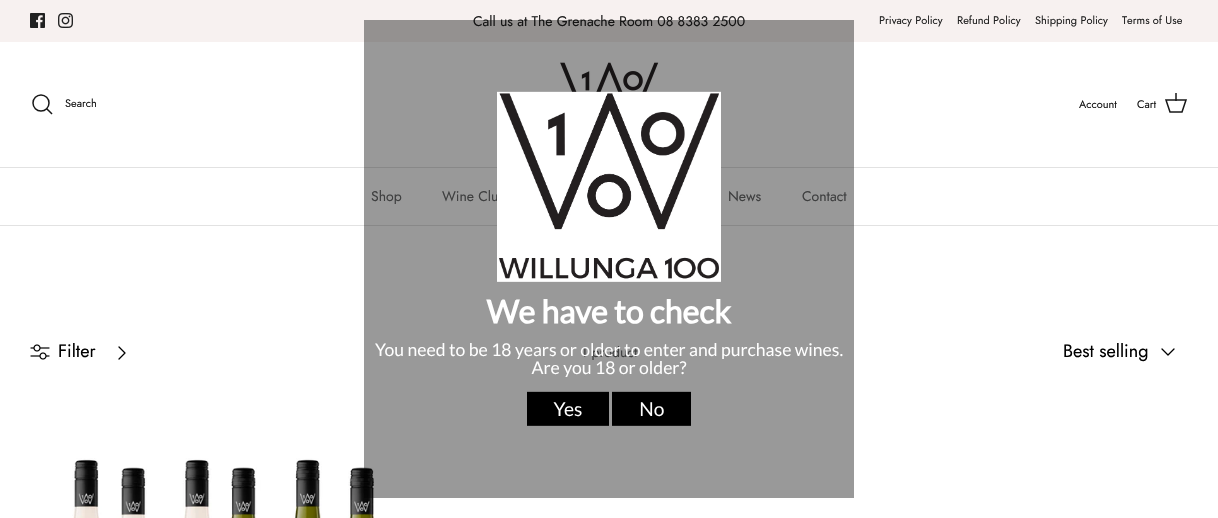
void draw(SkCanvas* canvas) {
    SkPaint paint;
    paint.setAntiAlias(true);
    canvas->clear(0xFFFFFFFF);
    paint.setColor(0xFFF7F1F0);
    canvas->drawRect(SkRect::MakeXYWH(0, 0, 1218, 42), paint);
    canvas->drawImageRect(SkImages::DeferredFromEncodedData(SkData::MakeFromFileName("img1.png")), SkRect::MakeXYWH(30, 13, 15, 15), SkSamplingOptions());
    canvas->drawImageRect(SkImages::DeferredFromEncodedData(SkData::MakeFromFileName("img2.png")), SkRect::MakeXYWH(58, 13, 15, 15), SkSamplingOptions());
    SkFont font1(fontMgr->matchFamilyStyle("Jost", SkFontStyle::Normal()), 14);
    font1.setSubpixel(true);
    paint.setColor(0xFF212121);
    canvas->drawString("Call us at The Grenache Room 08 8383 2500", 473, 26, font1, paint);
    SkFont font2(fontMgr->matchFamilyStyle("Jost", SkFontStyle::Normal()), 11);
    font2.setSubpixel(true);
    canvas->drawString("Privacy Policy", 879, 24, font2, paint);
    canvas->drawString("Refund Policy", 957, 24, font2, paint);
    canvas->drawString("Shipping Policy", 1035, 24, font2, paint);
    canvas->drawString("Terms of Use", 1122, 24, font2, paint);
    paint.setColor(0xFFE2E2E2);
    canvas->drawRect(SkRect::MakeXYWH(0, 167, 1218, 1), paint);
    canvas->drawImageRect(SkImages::DeferredFromEncodedData(SkData::MakeFromFileName("img4.png")), SkRect::MakeXYWH(560, 62, 99, 30), SkSamplingOptions());
    canvas->drawRect(SkRect::MakeXYWH(0, 225, 1218, 1), paint);
    paint.setColor(0xFF676869);
    canvas->drawString("Shop", 371, 201, font1, paint);
    canvas->drawString("Wine Clu", 442, 201, font1, paint);
    canvas->drawString("News", 728, 201, font1, paint);
    canvas->drawString("Contact", 802, 201, font1, paint);
    canvas->drawString("1 product", 581, 357, font1, paint);
    canvas->drawImageRect(SkImages::DeferredFromEncodedData(SkData::MakeFromFileName("img6.png")), SkRect::MakeXYWH(72, 458, 303, 60), SkSamplingOptions());
    canvas->drawImageRect(SkImages::DeferredFromEncodedData(SkData::MakeFromFileName("img3.png")), SkRect::MakeXYWH(364, 20, 490, 478), SkSamplingOptions());
    paint.setStyle(SkPaint::kStroke_Style);
    paint.setStrokeWidth(1.5f);
    paint.setColor(0xFF171717);
    canvas->drawCircle(41, 103, 8, paint);
    paint.setStyle(SkPaint::kFill_Style);
    canvas->drawString("Search", 65, 107, font2, paint);
    paint.setStyle(SkPaint::kStroke_Style);
    paint.setStrokeCap(SkPaint::kSquare_Cap);
    canvas->drawPath(SkPathBuilder().moveTo(47, 109).lineTo(51.5f, 113.5f).detach(), paint);
    paint.setStyle(SkPaint::kFill_Style);
    canvas->drawString("Account", 1079, 108, font2, paint);
    canvas->drawString("Cart", 1137, 108, font2, paint);
    paint.setStyle(SkPaint::kStroke_Style);
    paint.setStrokeCap(SkPaint::kButt_Cap);
    canvas->drawPath(SkPathBuilder().moveTo(1166, 100).lineTo(1186, 100).lineTo(1182, 112).lineTo(1170, 112).close().detach(), paint);
    paint.setStyle(SkPaint::kFill_Style);
    paint.setColor(0xBF171717);
    canvas->drawRect(SkRect::MakeXYWH(1175, 93, 2, 8), paint);
    canvas->drawImageRect(SkImages::DeferredFromEncodedData(SkData::MakeFromFileName("img5.png")), SkRect::MakeXYWH(30, 344, 20, 16), SkSamplingOptions());
    SkFont font3(fontMgr->matchFamilyStyle("Jost", SkFontStyle::Normal()), 18);
    font3.setSubpixel(true);
    paint.setColor(0xFF000000);
    canvas->drawString("Filter", 58, 357, font3, paint);
    paint.setStyle(SkPaint::kStroke_Style);
    paint.setStrokeWidth(1.3f);
    paint.setStrokeCap(SkPaint::kRound_Cap);
    paint.setStrokeJoin(SkPaint::kRound_Join);
    canvas->drawPath(SkPathBuilder().moveTo(119, 359).lineTo(125, 353).lineTo(119, 347).detach(), paint);
    paint.setStyle(SkPaint::kFill_Style);
    canvas->drawString("Best selling", 1063, 357, font3, paint);
    paint.setStyle(SkPaint::kStroke_Style);
    canvas->drawPath(SkPathBuilder().moveTo(1162, 349).lineTo(1168, 355).lineTo(1174, 349).detach(), paint);
}
